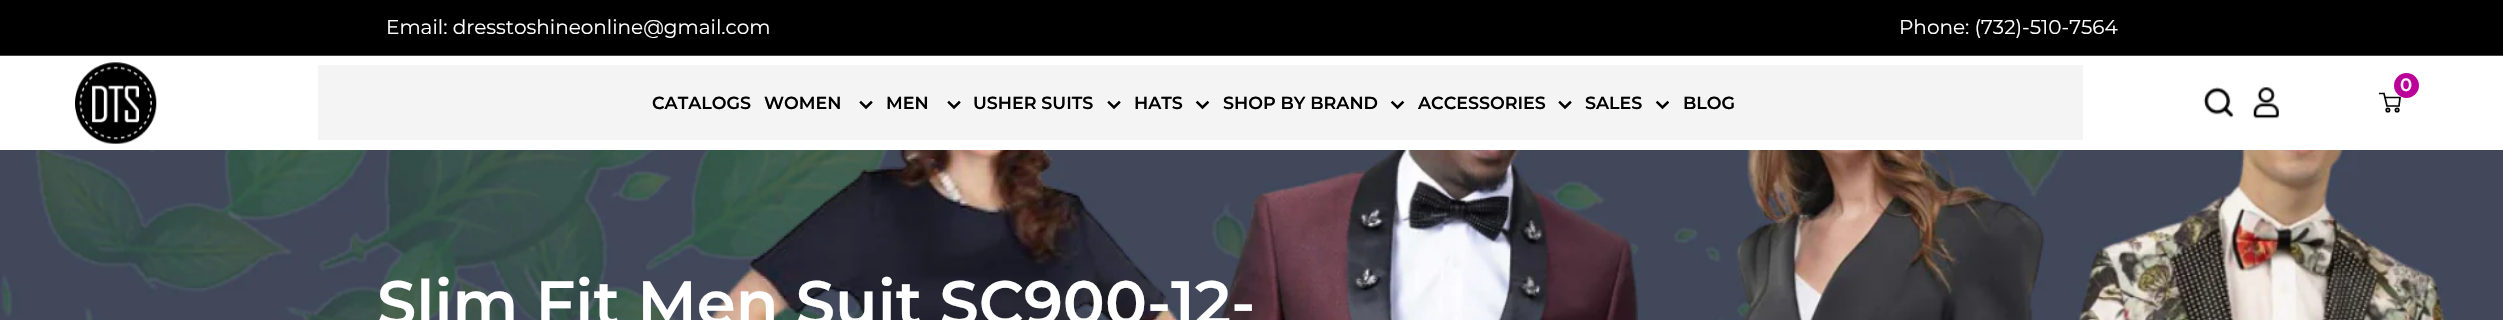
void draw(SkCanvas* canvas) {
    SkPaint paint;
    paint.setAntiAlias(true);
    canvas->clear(0xFFFFFFFF);
    paint.setColor(0xFF000000);
    canvas->drawRect(SkRect::MakeXYWH(0, 0, 2503, 55), paint);
    paint.setColor(0xFF464442);
    canvas->drawRect(SkRect::MakeXYWH(0, 55, 2503, 1), paint);
    SkFont font1(fontMgr->matchFamilyStyle("Montserrat", SkFontStyle::Normal()), 20);
    font1.setSubpixel(true);
    paint.setColor(0xFFFFFFFF);
    canvas->drawString("Email: dresstoshineonline@gmail.com", 386, 34, font1, paint);
    canvas->drawString("Phone: (732)-510-7564", 1899, 34, font1, paint);
    canvas->drawImageRect(SkImages::DeferredFromEncodedData(SkData::MakeFromFileName("img1.png")), SkRect::MakeXYWH(75, 62, 82, 82), SkSamplingOptions());
    paint.setStyle(SkPaint::kStroke_Style);
    paint.setStrokeWidth(1.7f);
    paint.setColor(0xFF000000);
    canvas->drawPath(SkPathBuilder().moveTo(2385, 97.5f).lineTo(2400, 97.5f).lineTo(2399, 106).lineTo(2387, 106).lineTo(2384, 93.5f).lineTo(2379, 93.5f).detach(), paint);
    paint.setStyle(SkPaint::kFill_Style);
    paint.setColor(0xFFBB0099);
    canvas->drawCircle(2406.5f, 85.5f, 12.5f, paint);
    SkFont font2(fontMgr->matchFamilyStyle("Montserrat", SkFontStyle(600, SkFontStyle::kNormal_Width, SkFontStyle::kUpright_Slant)), 18);
    font2.setSubpixel(true);
    paint.setColor(0xFFF5F4F4);
    canvas->drawString("0", 2400, 91, font2, paint);
    paint.setStyle(SkPaint::kStroke_Style);
    paint.setColor(0xFF000000);
    canvas->drawCircle(2387.9f, 110, 1.7f, paint);
    canvas->drawCircle(2397.1f, 110, 1.7f, paint);
    canvas->drawImageRect(SkImages::DeferredFromEncodedData(SkData::MakeFromFileName("img2.png")), SkRect::MakeXYWH(2203, 87, 31, 31), SkSamplingOptions());
    canvas->drawImageRect(SkImages::DeferredFromEncodedData(SkData::MakeFromFileName("img3.png")), SkRect::MakeXYWH(2253, 87, 26, 32), SkSamplingOptions());
    paint.setStyle(SkPaint::kFill_Style);
    paint.setColor(0xFFF5F4F4);
    canvas->drawRect(SkRect::MakeXYWH(318, 65, 1765, 75), paint);
    SkFont font3(fontMgr->matchFamilyStyle("Montserrat", SkFontStyle(600, SkFontStyle::kNormal_Width, SkFontStyle::kUpright_Slant)), 17.5f);
    font3.setSubpixel(true);
    paint.setColor(0xFF000000);
    canvas->drawString("CATALOGS", 652, 109, font3, paint);
    canvas->drawString("WOMEN", 764, 109, font3, paint);
    paint.setStyle(SkPaint::kStroke_Style);
    paint.setStrokeWidth(2.5f);
    paint.setStrokeCap(SkPaint::kSquare_Cap);
    canvas->drawPath(SkPathBuilder().moveTo(871, 102.5f).lineTo(866, 107.5f).lineTo(861, 102.5f).detach(), paint);
    paint.setStyle(SkPaint::kFill_Style);
    canvas->drawString("MEN", 886, 109, font3, paint);
    paint.setStyle(SkPaint::kStroke_Style);
    canvas->drawPath(SkPathBuilder().moveTo(959, 102.5f).lineTo(954, 107.5f).lineTo(949, 102.5f).detach(), paint);
    paint.setStyle(SkPaint::kFill_Style);
    canvas->drawString("USHER SUITS", 973, 109, font3, paint);
    paint.setStyle(SkPaint::kStroke_Style);
    canvas->drawPath(SkPathBuilder().moveTo(1119, 102.5f).lineTo(1114, 107.5f).lineTo(1109, 102.5f).detach(), paint);
    paint.setStyle(SkPaint::kFill_Style);
    canvas->drawString("HATS", 1134, 109, font3, paint);
    paint.setStyle(SkPaint::kStroke_Style);
    canvas->drawPath(SkPathBuilder().moveTo(1207.5f, 102.5f).lineTo(1202.5f, 107.5f).lineTo(1197.5f, 102.5f).detach(), paint);
    paint.setStyle(SkPaint::kFill_Style);
    canvas->drawString("SHOP BY BRAND", 1223, 109, font3, paint);
    paint.setStyle(SkPaint::kStroke_Style);
    canvas->drawPath(SkPathBuilder().moveTo(1402.5f, 102.5f).lineTo(1397.5f, 107.5f).lineTo(1392.5f, 102.5f).detach(), paint);
    paint.setStyle(SkPaint::kFill_Style);
    canvas->drawString("ACCESSORIES", 1418, 109, font3, paint);
    paint.setStyle(SkPaint::kStroke_Style);
    canvas->drawPath(SkPathBuilder().moveTo(1570, 102.5f).lineTo(1565, 107.5f).lineTo(1560, 102.5f).detach(), paint);
    paint.setStyle(SkPaint::kFill_Style);
    canvas->drawString("SALES", 1585, 109, font3, paint);
    paint.setStyle(SkPaint::kStroke_Style);
    canvas->drawPath(SkPathBuilder().moveTo(1667.5f, 102.5f).lineTo(1662.5f, 107.5f).lineTo(1657.5f, 102.5f).detach(), paint);
    paint.setStyle(SkPaint::kFill_Style);
    canvas->drawString("BLOG", 1683, 109, font3, paint);
    canvas->drawImageRect(SkImages::DeferredFromEncodedData(SkData::MakeFromFileName("img4.png")), SkRect::MakeXYWH(0, 150, 2503, 170), SkSamplingOptions());
    SkFont font4(fontMgr->matchFamilyStyle("Montserrat", SkFontStyle(600, SkFontStyle::kNormal_Width, SkFontStyle::kUpright_Slant)), 62.5f);
    font4.setSubpixel(true);
    paint.setColor(0xFFFFFFFF);
    canvas->drawString("Slim Fit Men Suit SC900-12-", 377, 325, font4, paint);
}
